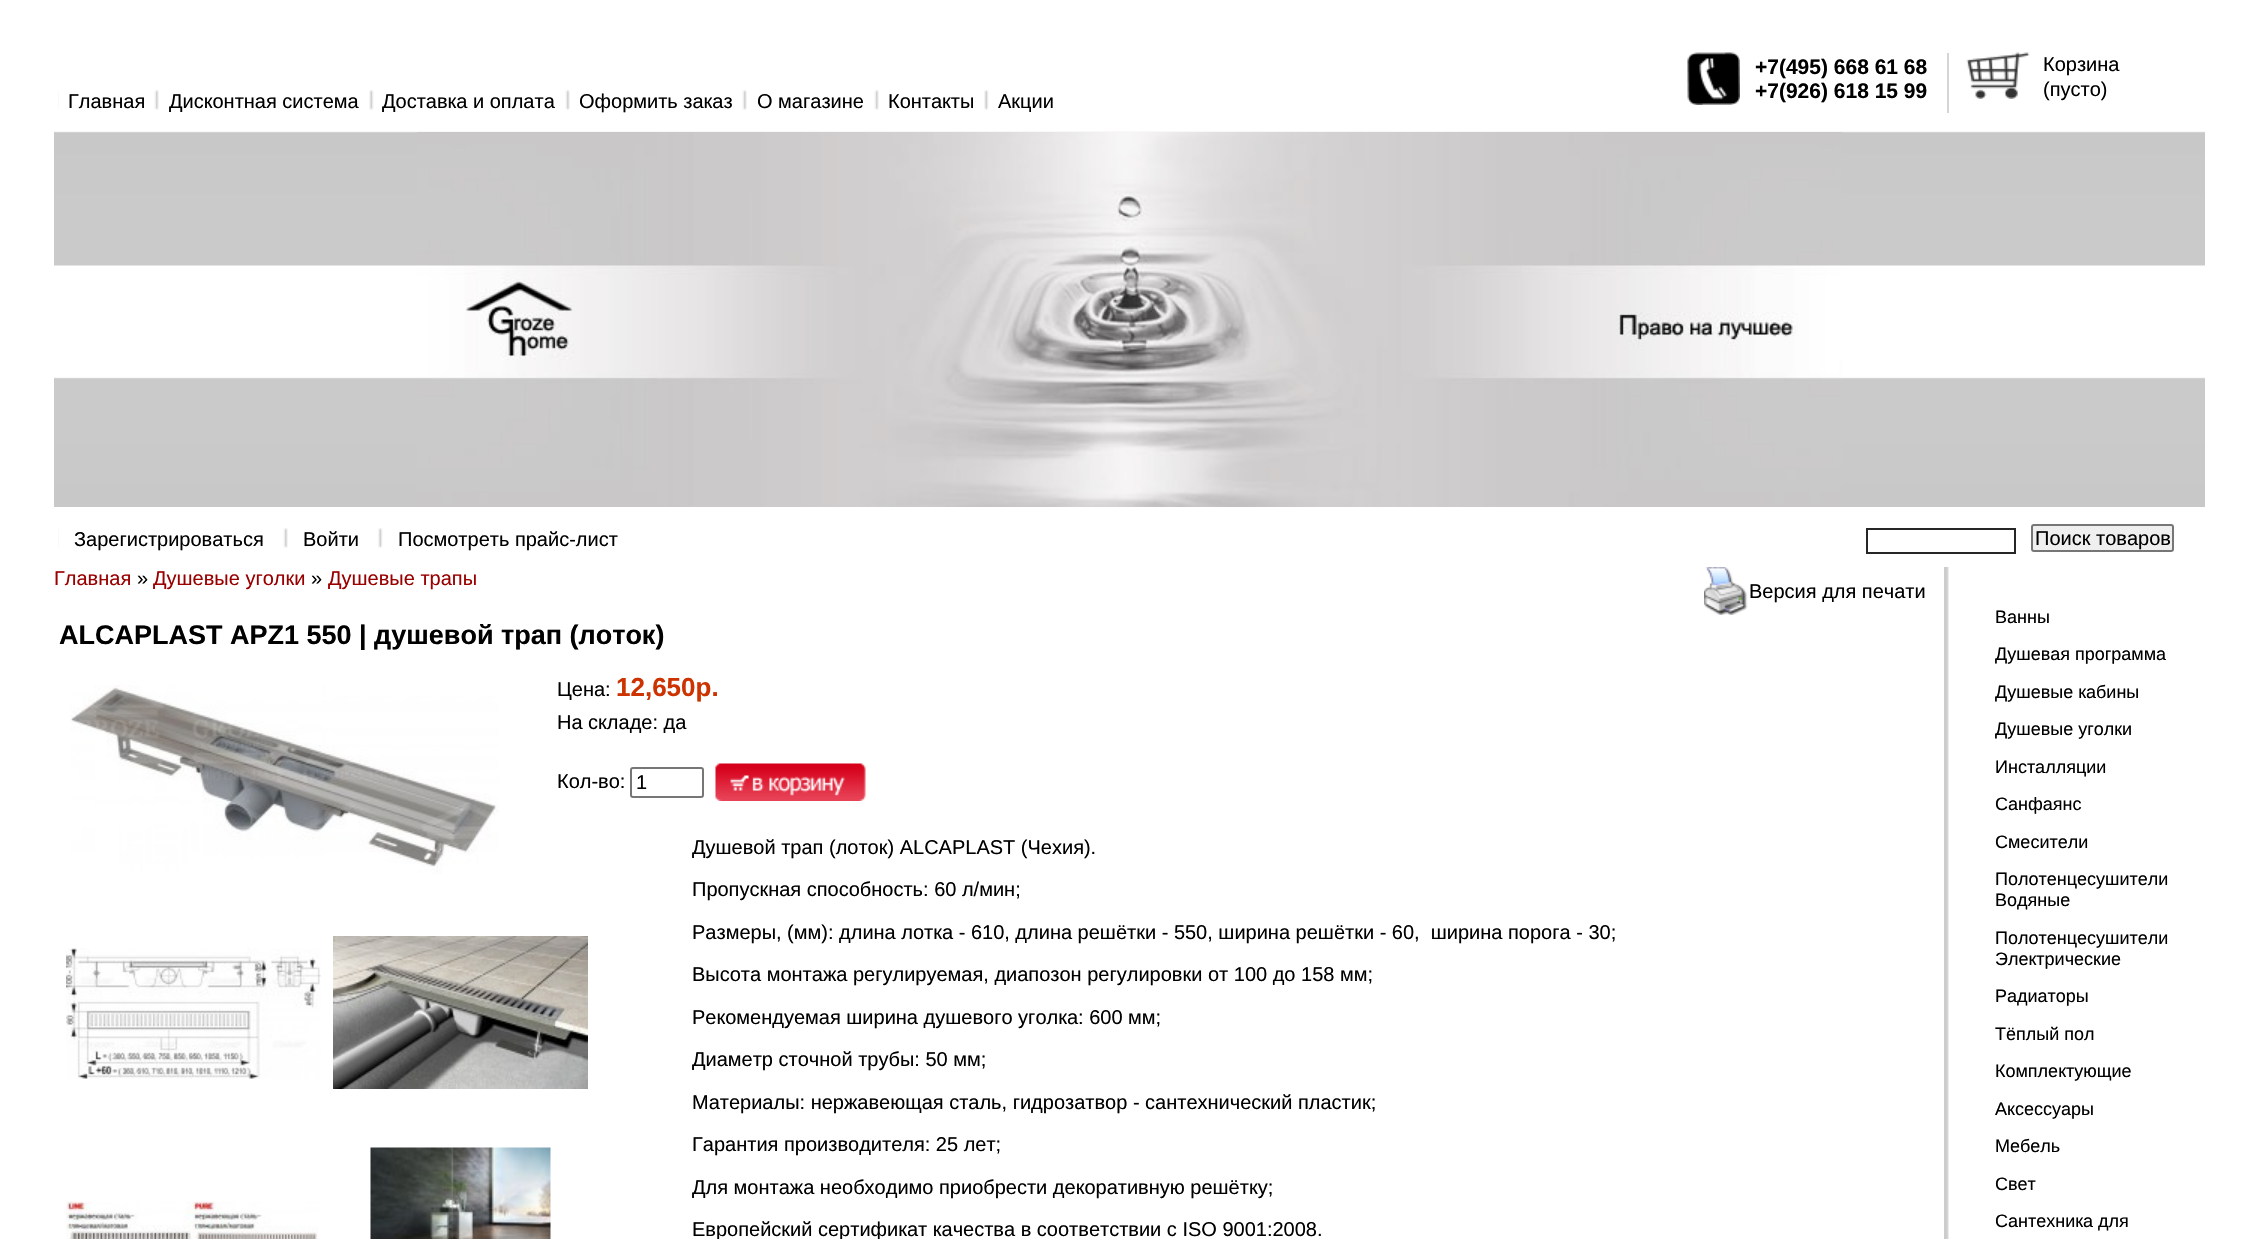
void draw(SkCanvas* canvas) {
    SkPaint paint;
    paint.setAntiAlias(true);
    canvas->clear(0xFFFFFFFF);
    canvas->drawImageRect(SkImages::DeferredFromEncodedData(SkData::MakeFromFileName("img1.png")), SkRect::MakeXYWH(54, 131, 2151, 376), SkSamplingOptions());
    canvas->drawImageRect(SkImages::DeferredFromEncodedData(SkData::MakeFromFileName("img2.png")), SkRect::MakeXYWH(58, 90, 1, 20), SkSamplingOptions());
    SkFont font1(fontMgr->matchFamilyStyle("Liberation Sans", SkFontStyle::Normal()), 20);
    font1.setSubpixel(true);
    paint.setColor(0xFF000000);
    canvas->drawString("Главная", 68, 108, font1, paint);
    canvas->drawImageRect(SkImages::DeferredFromEncodedData(SkData::MakeFromFileName("img3.png")), SkRect::MakeXYWH(154, 90, 5, 20), SkSamplingOptions());
    canvas->drawString("Дисконтная система", 169, 108, font1, paint);
    canvas->drawImageRect(SkImages::DeferredFromEncodedData(SkData::MakeFromFileName("img4.png")), SkRect::MakeXYWH(369, 90, 5, 20), SkSamplingOptions());
    canvas->drawString("Доставка и оплата", 382, 108, font1, paint);
    canvas->drawImageRect(SkImages::DeferredFromEncodedData(SkData::MakeFromFileName("img5.png")), SkRect::MakeXYWH(565, 90, 5, 20), SkSamplingOptions());
    canvas->drawString("Оформить заказ", 579, 108, font1, paint);
    canvas->drawImageRect(SkImages::DeferredFromEncodedData(SkData::MakeFromFileName("img5.png")), SkRect::MakeXYWH(742, 90, 5, 20), SkSamplingOptions());
    canvas->drawString("O магазине", 757, 108, font1, paint);
    canvas->drawImageRect(SkImages::DeferredFromEncodedData(SkData::MakeFromFileName("img3.png")), SkRect::MakeXYWH(874, 90, 5, 20), SkSamplingOptions());
    canvas->drawString("Контакты", 888, 108, font1, paint);
    canvas->drawImageRect(SkImages::DeferredFromEncodedData(SkData::MakeFromFileName("img6.png")), SkRect::MakeXYWH(984, 90, 5, 20), SkSamplingOptions());
    canvas->drawString("Акции", 998, 108, font1, paint);
    canvas->drawImageRect(SkImages::DeferredFromEncodedData(SkData::MakeFromFileName("img7.png")), SkRect::MakeXYWH(1687, 52, 53, 53), SkSamplingOptions());
    paint.setColor(0xFFD5D5D5);
    canvas->drawRect(SkRect::MakeXYWH(1947, 53, 2, 60), paint);
    SkFont font2(fontMgr->matchFamilyStyle("Liberation Sans", SkFontStyle::Bold()), 21);
    font2.setSubpixel(true);
    paint.setColor(0xFF000000);
    canvas->drawString("+7(495) 668 61 68", 1755, 74, font2, paint);
    canvas->drawString("+7(926) 618 15 99", 1755, 98, font2, paint);
    canvas->drawImageRect(SkImages::DeferredFromEncodedData(SkData::MakeFromFileName("img8.png")), SkRect::MakeXYWH(1966, 52, 64, 47), SkSamplingOptions());
    canvas->drawString("Корзина", 2043, 71, font1, paint);
    canvas->drawString("(пусто)", 2043, 96, font1, paint);
    canvas->drawImageRect(SkImages::DeferredFromEncodedData(SkData::MakeFromFileName("img9.png")), SkRect::MakeXYWH(417, 132, 1425, 375), SkSamplingOptions());
    canvas->drawImageRect(SkImages::DeferredFromEncodedData(SkData::MakeFromFileName("img2.png")), SkRect::MakeXYWH(58, 528, 1, 20), SkSamplingOptions());
    canvas->drawString("Зарегистрироваться", 74, 546, font1, paint);
    canvas->drawImageRect(SkImages::DeferredFromEncodedData(SkData::MakeFromFileName("img5.png")), SkRect::MakeXYWH(283, 528, 5, 20), SkSamplingOptions());
    canvas->drawString("Войти", 303, 546, font1, paint);
    canvas->drawImageRect(SkImages::DeferredFromEncodedData(SkData::MakeFromFileName("img4.png")), SkRect::MakeXYWH(378, 528, 5, 20), SkSamplingOptions());
    canvas->drawString("Посмотреть прайс-лист", 398, 546, font1, paint);
    paint.setStyle(SkPaint::kStroke_Style);
    paint.setStrokeWidth(2);
    paint.setColor(0xFF262626);
    canvas->drawRect(SkRect::MakeXYWH(1867, 529, 148, 24), paint);
    paint.setStyle(SkPaint::kFill_Style);
    paint.setColor(0xFFEFEFEF);
    canvas->drawRoundRect(SkRect::MakeXYWH(2032, 525, 141, 26), 2, 2, paint);
    paint.setStyle(SkPaint::kStroke_Style);
    paint.setColor(0xFF767676);
    canvas->drawRoundRect(SkRect::MakeXYWH(2032, 525, 141, 26), 2, 2, paint);
    paint.setStyle(SkPaint::kFill_Style);
    paint.setColor(0xFF000000);
    canvas->drawString("Поиск товаров", 2035, 545, font1, paint);
    canvas->drawImageRect(SkImages::DeferredFromEncodedData(SkData::MakeFromFileName("img10.png")), SkRect::MakeXYWH(1944, 567, 5, 672), SkSamplingOptions());
    paint.setColor(0xFF990000);
    canvas->drawString("Главная", 54, 585, font1, paint);
    paint.setColor(0xFF000000);
    canvas->drawString("»", 137, 585, font1, paint);
    paint.setColor(0xFF990000);
    canvas->drawString("Душевые уголки", 153, 585, font1, paint);
    paint.setColor(0xFF000000);
    canvas->drawString("»", 311, 585, font1, paint);
    paint.setColor(0xFF990000);
    canvas->drawString("Душевые трапы", 328, 585, font1, paint);
    canvas->drawImageRect(SkImages::DeferredFromEncodedData(SkData::MakeFromFileName("img11.png")), SkRect::MakeXYWH(1704, 567, 44, 48), SkSamplingOptions());
    paint.setColor(0xFF000000);
    canvas->drawString("Версия для печати", 1749, 598, font1, paint);
    SkFont font3(fontMgr->matchFamilyStyle("Liberation Sans", SkFontStyle::Bold()), 27);
    font3.setSubpixel(true);
    canvas->drawString("ALCAPLAST APZ1 550 | душевой трап (лоток)", 59, 644, font3, paint);
    canvas->drawImageRect(SkImages::DeferredFromEncodedData(SkData::MakeFromFileName("img12.png")), SkRect::MakeXYWH(70, 685, 429, 189), SkSamplingOptions());
    canvas->drawImageRect(SkImages::DeferredFromEncodedData(SkData::MakeFromFileName("img13.png")), SkRect::MakeXYWH(66, 948, 255, 131), SkSamplingOptions());
    canvas->drawImageRect(SkImages::DeferredFromEncodedData(SkData::MakeFromFileName("img14.png")), SkRect::MakeXYWH(333, 936, 255, 153), SkSamplingOptions());
    canvas->drawImageRect(SkImages::DeferredFromEncodedData(SkData::MakeFromFileName("img15.png")), SkRect::MakeXYWH(66, 1201, 253, 38), SkSamplingOptions());
    canvas->drawImageRect(SkImages::DeferredFromEncodedData(SkData::MakeFromFileName("img16.png")), SkRect::MakeXYWH(370, 1147, 181, 92), SkSamplingOptions());
    canvas->drawString("Цена:", 557, 696, font1, paint);
    SkFont font4(fontMgr->matchFamilyStyle("Liberation Sans", SkFontStyle::Bold()), 26);
    font4.setSubpixel(true);
    paint.setColor(0xFFCC3300);
    canvas->drawString("12,650р.", 616, 696, font4, paint);
    paint.setColor(0xFF000000);
    canvas->drawString("На складе: да", 557, 729, font1, paint);
    canvas->drawString("Кол-во:", 557, 788, font1, paint);
    paint.setStyle(SkPaint::kStroke_Style);
    paint.setColor(0xFF767676);
    canvas->drawRoundRect(SkRect::MakeXYWH(631, 768, 72, 29), 2, 2, paint);
    paint.setStyle(SkPaint::kFill_Style);
    paint.setColor(0xFF000000);
    canvas->drawString("1", 636, 789, font1, paint);
    canvas->drawImageRect(SkImages::DeferredFromEncodedData(SkData::MakeFromFileName("img17.png")), SkRect::MakeXYWH(715, 763, 151, 38), SkSamplingOptions());
    canvas->drawString("Душевой трап (лоток) ALCAPLAST (Чехия).", 692, 854, font1, paint);
    canvas->drawString("Пропускная способность: 60 л/мин;", 692, 896, font1, paint);
    canvas->drawString("Размеры, (мм): длина лотка - 610, длина решётки - 550, ширина решётки - 60,  ширина порога - 30;", 692, 939, font1, paint);
    canvas->drawString("Высота монтажа регулируемая, диапозон регулировки от 100 до 158 мм;", 692, 981, font1, paint);
    canvas->drawString("Рекомендуемая ширина душевого уголка: 600 мм;", 692, 1024, font1, paint);
    canvas->drawString("Диаметр сточной трубы: 50 мм;", 692, 1066, font1, paint);
    canvas->drawString("Материалы: нержавеющая сталь, гидрозатвор - сантехнический пластик;", 692, 1109, font1, paint);
    canvas->drawString("Гарантия производителя: 25 лет;", 692, 1151, font1, paint);
    canvas->drawString("Для монтажа необходимо приобрести декоративную решётку;", 692, 1194, font1, paint);
    canvas->drawString("Европейский сертификат качества в соответствии с ISO 9001:2008.", 692, 1236, font1, paint);
    SkFont font5(fontMgr->matchFamilyStyle("Liberation Sans", SkFontStyle::Normal()), 18);
    font5.setSubpixel(true);
    canvas->drawString("Ванны", 1995, 623, font5, paint);
    canvas->drawString("Душевая программа", 1995, 660, font5, paint);
    canvas->drawString("Душевые кабины", 1995, 698, font5, paint);
    canvas->drawString("Душевые уголки", 1995, 735, font5, paint);
    canvas->drawString("Инсталляции", 1995, 773, font5, paint);
    canvas->drawString("Санфаянс", 1995, 810, font5, paint);
    canvas->drawString("Смесители", 1995, 848, font5, paint);
    canvas->drawString("Полотенцесушители", 1995, 885, font5, paint);
    canvas->drawString("Водяные", 1995, 906, font5, paint);
    canvas->drawString("Полотенцесушители", 1995, 944, font5, paint);
    canvas->drawString("Электрические", 1995, 965, font5, paint);
    canvas->drawString("Радиаторы", 1995, 1002, font5, paint);
    canvas->drawString("Тёплый пол", 1995, 1040, font5, paint);
    canvas->drawString("Комплектующие", 1995, 1077, font5, paint);
    canvas->drawString("Аксессуары", 1995, 1115, font5, paint);
    canvas->drawString("Мебель", 1995, 1152, font5, paint);
    canvas->drawString("Свет", 1995, 1190, font5, paint);
    canvas->drawString("Сантехника для", 1995, 1227, font5, paint);
}
